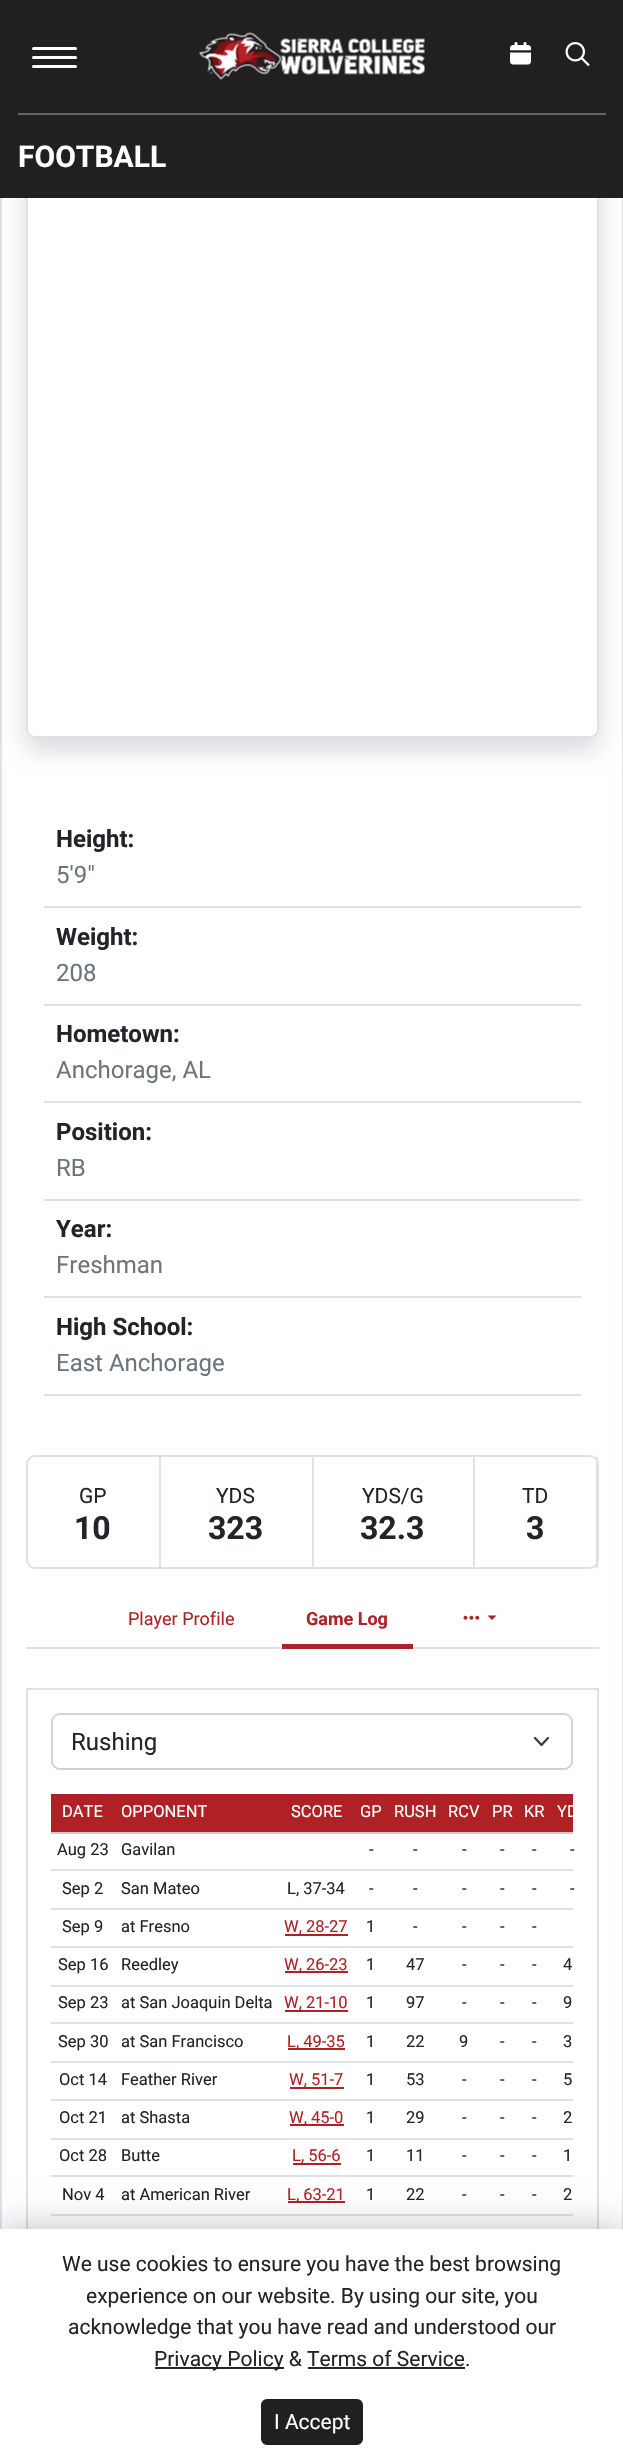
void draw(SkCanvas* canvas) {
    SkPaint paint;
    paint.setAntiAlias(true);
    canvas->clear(0xFFFFFFFF);
    paint.setStyle(SkPaint::kStroke_Style);
    paint.setStrokeWidth(2);
    paint.setColor(0xFFDEE2E6);
    canvas->drawRect(SkRect::MakeXYWH(1, -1, 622, 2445), paint);
    canvas->save();
    canvas->clipPath(SkPathBuilder(SkPathFillType::kEvenOdd).moveTo(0, 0).lineTo(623, 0).lineTo(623, 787).lineTo(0, 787).close().moveTo(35, -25).lineTo(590, -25).cubicTo(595, -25, 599, -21, 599, -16).lineTo(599, 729).cubicTo(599, 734, 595, 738, 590, 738).lineTo(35, 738).cubicTo(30, 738, 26, 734, 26, 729).lineTo(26, -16).cubicTo(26, -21, 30, -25, 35, -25).close().detach(), true);
    paint.setStyle(SkPaint::kFill_Style);
    paint.setColor(0x26000000);
    paint.setMaskFilter(SkMaskFilter::MakeBlur(kNormal_SkBlurStyle, 12));
    canvas->drawRoundRect(SkRect::MakeXYWH(26, -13, 573, 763), 9, 9, paint);
    paint.setMaskFilter(nullptr);
    canvas->restore();
    paint.setStyle(SkPaint::kStroke_Style);
    paint.setColor(0xFFDEE2E6);
    canvas->drawRoundRect(SkRect::MakeXYWH(27, -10, 571, 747), 8, 8, paint);
    paint.setStyle(SkPaint::kFill_Style);
    paint.setColor(0xFF211F20);
    canvas->drawRect(SkRect::MakeXYWH(0, 0, 623, 198), paint);
    paint.setColor(0xFFFFFFFF);
    canvas->drawRoundRect(SkRect::MakeXYWH(32, 47, 45, 3), 1.5f, 1.5f, paint);
    canvas->drawRoundRect(SkRect::MakeXYWH(32, 56, 45, 3), 1.5f, 1.5f, paint);
    canvas->drawRoundRect(SkRect::MakeXYWH(32, 65, 45, 3), 1.5f, 1.5f, paint);
    canvas->drawImageRect(SkImages::DeferredFromEncodedData(SkData::MakeFromFileName("img1.png")), SkRect::MakeXYWH(199, 32, 226, 48), SkSamplingOptions());
    canvas->drawImageRect(SkImages::DeferredFromEncodedData(SkData::MakeFromFileName("img2.png")), SkRect::MakeXYWH(510, 42, 21, 23), SkSamplingOptions());
    canvas->drawImageRect(SkImages::DeferredFromEncodedData(SkData::MakeFromFileName("img3.png")), SkRect::MakeXYWH(565, 42, 25, 24), SkSamplingOptions());
    paint.setColor(0xFF646263);
    canvas->drawRect(SkRect::MakeXYWH(18, 113, 588, 2), paint);
    SkFont font1(fontMgr->matchFamilyStyle("Roboto", SkFontStyle::Bold()), 30);
    font1.setSubpixel(true);
    paint.setColor(0xFFFFFFFF);
    canvas->drawString("FOOTBALL", 18, 167, font1, paint);
    paint.setColor(0xFFDEE2E6);
    canvas->drawRect(SkRect::MakeXYWH(44, 906, 537, 2), paint);
    SkFont font2(fontMgr->matchFamilyStyle("Roboto", SkFontStyle::Bold()), 24);
    font2.setSubpixel(true);
    paint.setColor(0xFF212529);
    canvas->drawString("Height:", 56, 847, font2, paint);
    SkFont font3(fontMgr->matchFamilyStyle("Roboto", SkFontStyle::Normal()), 24);
    font3.setSubpixel(true);
    paint.setColor(0xFF6C757D);
    canvas->drawString("5'9\"", 56, 883, font3, paint);
    paint.setColor(0xFFDEE2E6);
    canvas->drawRect(SkRect::MakeXYWH(44, 1004, 537, 2), paint);
    paint.setColor(0xFF212529);
    canvas->drawString("Weight:", 56, 945, font2, paint);
    paint.setColor(0xFF6C757D);
    canvas->drawString("208", 56, 981, font3, paint);
    paint.setColor(0xFFDEE2E6);
    canvas->drawRect(SkRect::MakeXYWH(44, 1101, 537, 2), paint);
    paint.setColor(0xFF212529);
    canvas->drawString("Hometown:", 56, 1042, font2, paint);
    paint.setColor(0xFF6C757D);
    canvas->drawString("Anchorage, AL", 56, 1078, font3, paint);
    paint.setColor(0xFFDEE2E6);
    canvas->drawRect(SkRect::MakeXYWH(44, 1199, 537, 2), paint);
    paint.setColor(0xFF212529);
    canvas->drawString("Position:", 56, 1140, font2, paint);
    paint.setColor(0xFF6C757D);
    canvas->drawString("RB", 56, 1176, font3, paint);
    paint.setColor(0xFFDEE2E6);
    canvas->drawRect(SkRect::MakeXYWH(44, 1296, 537, 2), paint);
    paint.setColor(0xFF212529);
    canvas->drawString("Year:", 56, 1237, font2, paint);
    paint.setColor(0xFF6C757D);
    canvas->drawString("Freshman", 56, 1273, font3, paint);
    paint.setColor(0xFFDEE2E6);
    canvas->drawRect(SkRect::MakeXYWH(44, 1394, 537, 2), paint);
    paint.setColor(0xFF212529);
    canvas->drawString("High School:", 56, 1335, font2, paint);
    paint.setColor(0xFF6C757D);
    canvas->drawString("East Anchorage", 56, 1371, font3, paint);
    paint.setStyle(SkPaint::kStroke_Style);
    paint.setColor(0xFFDEE2E6);
    canvas->drawRoundRect(SkRect::MakeXYWH(27, 1456, 571, 112), 8, 8, paint);
    paint.setStyle(SkPaint::kFill_Style);
    canvas->drawRect(SkRect::MakeXYWH(159, 1457, 2, 111), paint);
    SkFont font4(fontMgr->matchFamilyStyle("Roboto", SkFontStyle::Normal()), 21);
    font4.setSubpixel(true);
    paint.setColor(0xFF212529);
    canvas->drawString("GP", 79, 1503, font4, paint);
    SkFont font5(fontMgr->matchFamilyStyle("Roboto", SkFontStyle::Bold()), 32);
    font5.setSubpixel(true);
    canvas->drawString("10", 74, 1539, font5, paint);
    paint.setColor(0xFFDEE2E6);
    canvas->drawRect(SkRect::MakeXYWH(312, 1457, 2, 111), paint);
    paint.setColor(0xFF212529);
    canvas->drawString("YDS", 216, 1503, font4, paint);
    canvas->drawString("323", 208, 1539, font5, paint);
    paint.setColor(0xFFDEE2E6);
    canvas->drawRect(SkRect::MakeXYWH(473, 1457, 2, 111), paint);
    paint.setColor(0xFF212529);
    canvas->drawString("YDS/G", 362, 1503, font4, paint);
    canvas->drawString("32.3", 360, 1539, font5, paint);
    paint.setColor(0xFFDEE2E6);
    canvas->drawRect(SkRect::MakeXYWH(596, 1457, 2, 111), paint);
    paint.setColor(0xFF212529);
    canvas->drawString("TD", 522, 1503, font4, paint);
    canvas->drawString("3", 526, 1539, font5, paint);
    paint.setColor(0xFFDEE2E6);
    canvas->drawRect(SkRect::MakeXYWH(26, 1647, 573, 2), paint);
    SkFont font6(fontMgr->matchFamilyStyle("Roboto", SkFontStyle::Normal()), 18);
    font6.setSubpixel(true);
    paint.setColor(0xFFAF2124);
    canvas->drawString("Player Profile", 128, 1625, font6, paint);
    canvas->drawRect(SkRect::MakeXYWH(282, 1644, 131, 5), paint);
    SkFont font7(fontMgr->matchFamilyStyle("Roboto", SkFontStyle::Bold()), 18);
    font7.setSubpixel(true);
    canvas->drawString("Game Log", 306, 1625, font7, paint);
    canvas->drawImageRect(SkImages::DeferredFromEncodedData(SkData::MakeFromFileName("img4.png")), SkRect::MakeXYWH(463, 1615, 17, 5), SkSamplingOptions());
    canvas->drawPath(SkPathBuilder().moveTo(487.5f, 1615.5f).lineTo(496.5f, 1615.5f).lineTo(492, 1620).close().detach(), paint);
    paint.setStyle(SkPaint::kStroke_Style);
    paint.setColor(0xFFDEE2E6);
    canvas->drawRect(SkRect::MakeXYWH(27, 1689, 571, 682), paint);
    paint.setStrokeWidth(2.2f);
    paint.setStrokeCap(SkPaint::kRound_Cap);
    paint.setStrokeJoin(SkPaint::kRound_Join);
    paint.setColor(0xFF343A40);
    canvas->drawPath(SkPathBuilder().moveTo(535, 1738).lineTo(541.5f, 1745).lineTo(548, 1738).detach(), paint);
    paint.setStrokeWidth(2);
    paint.setStrokeCap(SkPaint::kButt_Cap);
    paint.setStrokeJoin(SkPaint::kMiter_Join);
    paint.setColor(0xFFCED4DA);
    canvas->drawRoundRect(SkRect::MakeXYWH(52, 1714, 520, 55), 8, 8, paint);
    paint.setStyle(SkPaint::kFill_Style);
    paint.setColor(0xFF212529);
    canvas->drawString("Rushing", 71, 1750, font3, paint);
    paint.setColor(0xFFAF2124);
    canvas->drawRect(SkRect::MakeXYWH(51, 1794, 522, 38), paint);
    SkFont font8(fontMgr->matchFamilyStyle("Roboto", SkFontStyle::Normal()), 16.5f);
    font8.setSubpixel(true);
    paint.setColor(0xFFFFFFFF);
    canvas->drawString("DATE", 62, 1817, font8, paint);
    canvas->drawString("OPPONENT", 121, 1817, font8, paint);
    canvas->drawString("SCORE", 291, 1817, font8, paint);
    canvas->drawString("GP", 360, 1817, font8, paint);
    canvas->drawString("RUSH", 394, 1817, font8, paint);
    canvas->drawString("RCV", 448, 1817, font8, paint);
    canvas->drawString("PR", 492, 1817, font8, paint);
    canvas->drawString("KR", 524, 1817, font8, paint);
    canvas->save();
    canvas->clipRect(SkRect::MakeXYWH(51, 1770, 522, 576));
    canvas->drawString("YD", 557, 1817, font8, paint);
    canvas->restore();
    paint.setColor(0xFF212529);
    canvas->drawString("Aug 23", 57, 1855, font8, paint);
    canvas->drawString("Gavilan", 121, 1855, font8, paint);
    canvas->drawString("-", 369, 1855, font8, paint);
    canvas->drawString("-", 413, 1855, font8, paint);
    canvas->drawString("-", 462, 1855, font8, paint);
    canvas->drawString("-", 500, 1855, font8, paint);
    canvas->drawString("-", 532, 1855, font8, paint);
    paint.setColor(0xFFCCCCCC);
    canvas->drawRect(SkRect::MakeXYWH(51, 1832, 522, 2), paint);
    paint.setColor(0xFFDEE2E6);
    canvas->drawRect(SkRect::MakeXYWH(51, 1869, 522, 2), paint);
    paint.setColor(0xFF212529);
    canvas->drawString("-", 570, 1855, font8, paint);
    canvas->drawString("Sep 2", 62, 1894, font8, paint);
    canvas->drawString("San Mateo", 121, 1894, font8, paint);
    canvas->drawString("L, 37-34", 287, 1894, font8, paint);
    canvas->drawString("-", 369, 1894, font8, paint);
    canvas->drawString("-", 413, 1894, font8, paint);
    canvas->drawString("-", 462, 1894, font8, paint);
    canvas->drawString("-", 500, 1894, font8, paint);
    canvas->drawString("-", 532, 1894, font8, paint);
    paint.setColor(0xFFDEE2E6);
    canvas->drawRect(SkRect::MakeXYWH(51, 1908, 522, 2), paint);
    paint.setColor(0xFF212529);
    canvas->drawString("-", 570, 1894, font8, paint);
    canvas->drawString("Sep 9", 62, 1932, font8, paint);
    canvas->drawString("at Fresno", 121, 1932, font8, paint);
    paint.setColor(0xFFAF2124);
    canvas->drawRect(SkRect::MakeXYWH(285, 1934, 63, 2), paint);
    canvas->drawString("W, 28-27", 284, 1932, font8, paint);
    paint.setColor(0xFF212529);
    canvas->drawString("1", 366, 1932, font8, paint);
    canvas->drawString("-", 413, 1932, font8, paint);
    canvas->drawString("-", 462, 1932, font8, paint);
    canvas->drawString("-", 500, 1932, font8, paint);
    canvas->drawString("-", 532, 1932, font8, paint);
    paint.setColor(0xFFDEE2E6);
    canvas->drawRect(SkRect::MakeXYWH(51, 1946, 522, 2), paint);
    paint.setColor(0xFF212529);
    canvas->drawString("Sep 16", 58, 1970, font8, paint);
    canvas->drawString("Reedley", 121, 1970, font8, paint);
    paint.setColor(0xFFAF2124);
    canvas->drawRect(SkRect::MakeXYWH(285, 1971, 63, 2), paint);
    canvas->drawString("W, 26-23", 284, 1970, font8, paint);
    paint.setColor(0xFF212529);
    canvas->drawString("1", 366, 1970, font8, paint);
    canvas->drawString("47", 406, 1970, font8, paint);
    canvas->drawString("-", 462, 1970, font8, paint);
    canvas->drawString("-", 500, 1970, font8, paint);
    canvas->drawString("-", 532, 1970, font8, paint);
    paint.setColor(0xFFDEE2E6);
    canvas->drawRect(SkRect::MakeXYWH(51, 1985, 522, 2), paint);
    paint.setColor(0xFF212529);
    canvas->drawString("4", 563, 1970, font8, paint);
    canvas->drawString("Sep 23", 58, 2008, font8, paint);
    canvas->drawString("at San Joaquin Delta", 121, 2008, font8, paint);
    paint.setColor(0xFFAF2124);
    canvas->drawRect(SkRect::MakeXYWH(285, 2010, 63, 2), paint);
    canvas->drawString("W, 21-10", 284, 2008, font8, paint);
    paint.setColor(0xFF212529);
    canvas->drawString("1", 366, 2008, font8, paint);
    canvas->drawString("97", 406, 2008, font8, paint);
    canvas->drawString("-", 462, 2008, font8, paint);
    canvas->drawString("-", 500, 2008, font8, paint);
    canvas->drawString("-", 532, 2008, font8, paint);
    paint.setColor(0xFFDEE2E6);
    canvas->drawRect(SkRect::MakeXYWH(51, 2022, 522, 2), paint);
    paint.setColor(0xFF212529);
    canvas->drawString("9", 563, 2008, font8, paint);
    canvas->drawString("Sep 30", 58, 2047, font8, paint);
    canvas->drawString("at San Francisco", 121, 2047, font8, paint);
    paint.setColor(0xFFAF2124);
    canvas->drawRect(SkRect::MakeXYWH(288, 2048, 57, 2), paint);
    canvas->drawString("L, 49-35", 287, 2047, font8, paint);
    paint.setColor(0xFF212529);
    canvas->drawString("1", 366, 2047, font8, paint);
    canvas->drawString("22", 406, 2047, font8, paint);
    canvas->drawString("9", 459, 2047, font8, paint);
    canvas->drawString("-", 500, 2047, font8, paint);
    canvas->drawString("-", 532, 2047, font8, paint);
    paint.setColor(0xFFDEE2E6);
    canvas->drawRect(SkRect::MakeXYWH(51, 2061, 522, 2), paint);
    paint.setColor(0xFF212529);
    canvas->drawString("3", 563, 2047, font8, paint);
    canvas->drawString("Oct 14", 59, 2085, font8, paint);
    canvas->drawString("Feather River", 121, 2085, font8, paint);
    paint.setColor(0xFFAF2124);
    canvas->drawRect(SkRect::MakeXYWH(290, 2087, 54, 2), paint);
    canvas->drawString("W, 51-7", 289, 2085, font8, paint);
    paint.setColor(0xFF212529);
    canvas->drawString("1", 366, 2085, font8, paint);
    canvas->drawString("53", 406, 2085, font8, paint);
    canvas->drawString("-", 462, 2085, font8, paint);
    canvas->drawString("-", 500, 2085, font8, paint);
    canvas->drawString("-", 532, 2085, font8, paint);
    paint.setColor(0xFFDEE2E6);
    canvas->drawRect(SkRect::MakeXYWH(51, 2099, 522, 2), paint);
    paint.setColor(0xFF212529);
    canvas->drawString("5", 563, 2085, font8, paint);
    canvas->drawString("Oct 21", 59, 2123, font8, paint);
    canvas->drawString("at Shasta", 121, 2123, font8, paint);
    paint.setColor(0xFFAF2124);
    canvas->drawRect(SkRect::MakeXYWH(290, 2124, 54, 2), paint);
    canvas->drawString("W, 45-0", 289, 2123, font8, paint);
    paint.setColor(0xFF212529);
    canvas->drawString("1", 366, 2123, font8, paint);
    canvas->drawString("29", 406, 2123, font8, paint);
    canvas->drawString("-", 462, 2123, font8, paint);
    canvas->drawString("-", 500, 2123, font8, paint);
    canvas->drawString("-", 532, 2123, font8, paint);
    paint.setColor(0xFFDEE2E6);
    canvas->drawRect(SkRect::MakeXYWH(51, 2138, 522, 2), paint);
    paint.setColor(0xFF212529);
    canvas->drawString("2", 563, 2123, font8, paint);
    canvas->drawString("Oct 28", 59, 2161, font8, paint);
    canvas->drawString("Butte", 121, 2161, font8, paint);
    paint.setColor(0xFFAF2124);
    canvas->drawRect(SkRect::MakeXYWH(293, 2163, 48, 2), paint);
    canvas->drawString("L, 56-6", 292, 2161, font8, paint);
    paint.setColor(0xFF212529);
    canvas->drawString("1", 366, 2161, font8, paint);
    canvas->drawString("11", 406, 2161, font8, paint);
    canvas->drawString("-", 462, 2161, font8, paint);
    canvas->drawString("-", 500, 2161, font8, paint);
    canvas->drawString("-", 532, 2161, font8, paint);
    paint.setColor(0xFFDEE2E6);
    canvas->drawRect(SkRect::MakeXYWH(51, 2175, 522, 2), paint);
    paint.setColor(0xFF212529);
    canvas->drawString("1", 563, 2161, font8, paint);
    canvas->drawString("Nov 4", 62, 2200, font8, paint);
    canvas->drawString("at American River", 121, 2200, font8, paint);
    paint.setColor(0xFFAF2124);
    canvas->drawRect(SkRect::MakeXYWH(288, 2201, 57, 2), paint);
    canvas->drawString("L, 63-21", 287, 2200, font8, paint);
    paint.setColor(0xFF212529);
    canvas->drawString("1", 366, 2200, font8, paint);
    canvas->drawString("22", 406, 2200, font8, paint);
    canvas->drawString("-", 462, 2200, font8, paint);
    canvas->drawString("-", 500, 2200, font8, paint);
    canvas->drawString("-", 532, 2200, font8, paint);
    paint.setColor(0xFFDEE2E6);
    canvas->drawRect(SkRect::MakeXYWH(51, 2214, 522, 2), paint);
    paint.setColor(0xFF212529);
    canvas->drawString("2", 563, 2200, font8, paint);
    paint.setColor(0x40000000);
    paint.setMaskFilter(SkMaskFilter::MakeBlur(kNormal_SkBlurStyle, 18));
    canvas->drawRect(SkRect::MakeXYWH(0, 2229, 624, 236), paint);
    paint.setMaskFilter(nullptr);
    paint.setColor(0xFFFFFFFF);
    canvas->drawRect(SkRect::MakeXYWH(0, 2229, 623, 235), paint);
    paint.setColor(0xFF212529);
    canvas->drawString("We use cookies to ensure you have the best browsing", 62, 2271, font4, paint);
    canvas->drawString("experience on our website. By using our site, you", 86, 2303, font4, paint);
    canvas->drawString("acknowledge that you have read and understood our", 68, 2334, font4, paint);
    canvas->drawRect(SkRect::MakeXYWH(155, 2367, 129, 2), paint);
    canvas->drawString("Privacy Policy & Terms of Service.", 154, 2366, font4, paint);
    canvas->drawRect(SkRect::MakeXYWH(308, 2367, 157, 2), paint);
    paint.setColor(0xFF211F20);
    canvas->drawRoundRect(SkRect::MakeXYWH(262, 2400, 100, 44), 5, 5, paint);
    paint.setStyle(SkPaint::kStroke_Style);
    canvas->drawRoundRect(SkRect::MakeXYWH(262, 2400, 100, 44), 5, 5, paint);
    paint.setStyle(SkPaint::kFill_Style);
    paint.setColor(0xFFFFFFFF);
    canvas->drawString("I Accept", 274, 2429, font4, paint);
}
